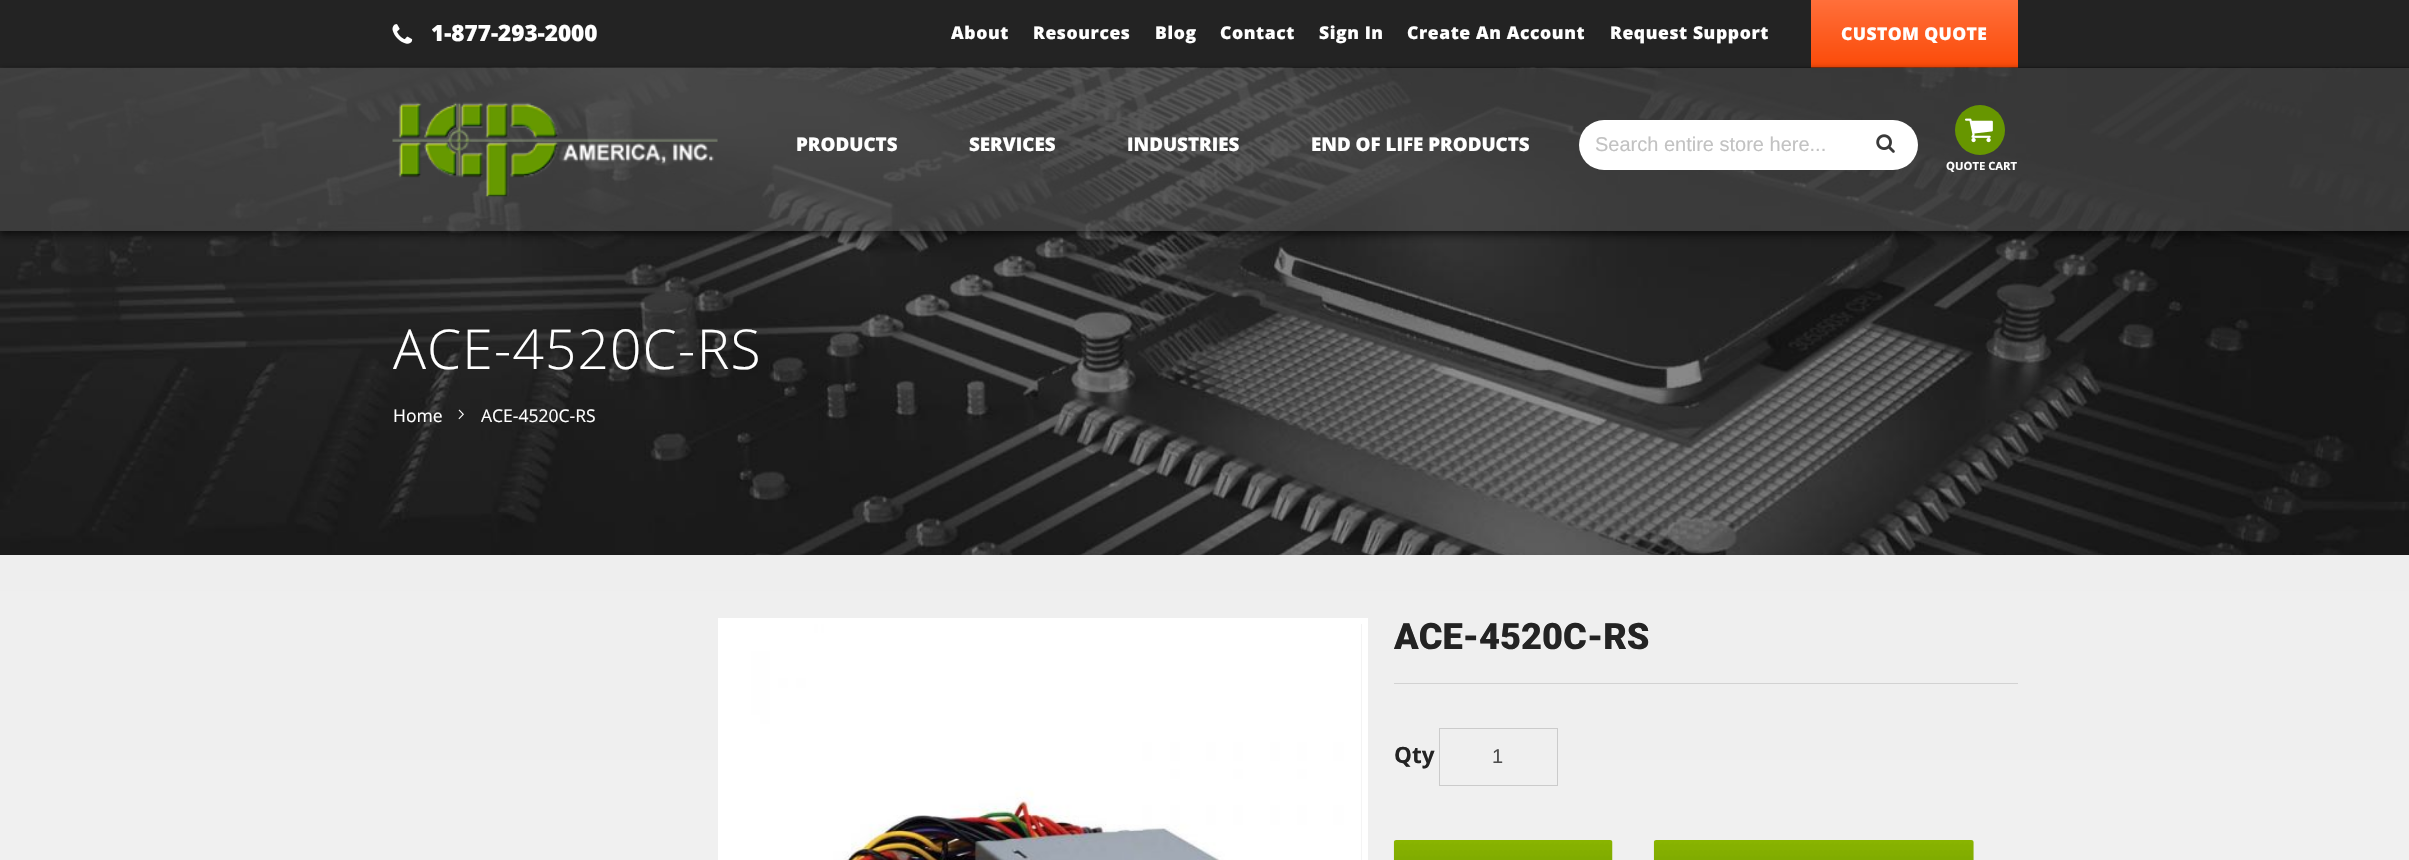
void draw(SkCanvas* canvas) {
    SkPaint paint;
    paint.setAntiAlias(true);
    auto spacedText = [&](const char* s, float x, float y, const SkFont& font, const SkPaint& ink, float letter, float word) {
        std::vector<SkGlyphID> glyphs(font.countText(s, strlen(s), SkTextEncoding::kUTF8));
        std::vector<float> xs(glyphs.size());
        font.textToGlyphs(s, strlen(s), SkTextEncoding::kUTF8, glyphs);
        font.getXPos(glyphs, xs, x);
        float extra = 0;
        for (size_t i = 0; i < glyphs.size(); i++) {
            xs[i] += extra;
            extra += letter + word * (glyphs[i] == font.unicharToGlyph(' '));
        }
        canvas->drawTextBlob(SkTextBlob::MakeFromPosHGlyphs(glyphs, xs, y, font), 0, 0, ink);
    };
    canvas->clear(0xFFFFFFFF);
    {
        const SkColor colors[] = {0xFFEBEBEB, 0xFFFFFFFF};
        const float stops[] = {0, 1};
        const SkPoint ends[] = {{1205, 0}, {1205, 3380}};
        paint.setShader(SkGradientShader::MakeLinear(ends, colors, stops, 2, SkTileMode::kClamp));
        paint.setAlpha(255);
    }
    canvas->drawRect(SkRect::MakeXYWH(0, 555, 2409, 305), paint);
    paint.setShader(nullptr);
    paint.setColor(0xFF232323);
    canvas->drawRect(SkRect::MakeXYWH(0, 0, 2409, 68), paint);
    canvas->drawImageRect(SkImages::DeferredFromEncodedData(SkData::MakeFromFileName("img1.png")), SkRect::MakeXYWH(392, 24, 21, 20), SkSamplingOptions());
    SkFont font1(fontMgr->matchFamilyStyle("Open Sans", SkFontStyle(800, SkFontStyle::kNormal_Width, SkFontStyle::kUpright_Slant)), 22.5f);
    font1.setSubpixel(true);
    paint.setColor(0xFFFFFFFF);
    canvas->drawString("1-877-293-2000", 431, 41, font1, paint);
    SkFont font2(fontMgr->matchFamilyStyle("Open Sans", SkFontStyle(800, SkFontStyle::kNormal_Width, SkFontStyle::kUpright_Slant)), 17.5f);
    font2.setSubpixel(true);
    spacedText("About", 951, 39, font2, paint, 0.6f, 0);
    spacedText("Resources", 1033, 39, font2, paint, 0.6f, 0);
    spacedText("Blog", 1155, 39, font2, paint, 0.6f, 0);
    spacedText("Contact", 1220, 39, font2, paint, 0.6f, 0);
    spacedText("Sign In", 1319, 39, font2, paint, 0.6f, 0);
    spacedText("Create An Account", 1407, 39, font2, paint, 0.6f, 0);
    spacedText("Request Support", 1610, 39, font2, paint, 0.6f, 0);
    {
        const SkColor colors[] = {0xFFFF6F3A, 0xFFFB4A08};
        const float stops[] = {0, 1};
        const SkPoint ends[] = {{1914, 0}, {1914, 68}};
        paint.setShader(SkGradientShader::MakeLinear(ends, colors, stops, 2, SkTileMode::kClamp));
        paint.setAlpha(255);
    }
    canvas->drawRect(SkRect::MakeXYWH(1811, 0, 207, 68), paint);
    paint.setShader(nullptr);
    paint.setColor(0xFFFFFFFF);
    spacedText("CUSTOM QUOTE", 1841, 40, font2, paint, 0.4f, 0);
    canvas->drawImageRect(SkImages::DeferredFromEncodedData(SkData::MakeFromFileName("img5.png")), SkRect::MakeXYWH(0, 67, 2409, 488), SkSamplingOptions());
    canvas->save();
    canvas->clipPath(SkPathBuilder(SkPathFillType::kEvenOdd).moveTo(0, 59).lineTo(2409, 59).lineTo(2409, 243).lineTo(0, 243).close().moveTo(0, 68).lineTo(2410, 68).lineTo(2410, 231).lineTo(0, 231).close().detach(), true);
    paint.setColor(0x80000000);
    paint.setMaskFilter(SkMaskFilter::MakeBlur(kNormal_SkBlurStyle, 3));
    canvas->drawRect(SkRect::MakeXYWH(1, 69, 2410, 164), paint);
    paint.setMaskFilter(nullptr);
    canvas->restore();
    canvas->save();
    canvas->clipRect(SkRect::MakeXYWH(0, 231, 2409, 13));
    paint.setColor(0x40000000);
    paint.setMaskFilter(SkMaskFilter::MakeBlur(kNormal_SkBlurStyle, 4));
    canvas->drawRect(SkRect::MakeXYWH(0, 74, 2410, 164), paint);
    paint.setMaskFilter(nullptr);
    canvas->restore();
    paint.setColor(0xA6484848);
    canvas->drawRect(SkRect::MakeXYWH(0, 68, 2409, 163), paint);
    SkFont font3(fontMgr->matchFamilyStyle("Open Sans", SkFontStyle(800, SkFontStyle::kNormal_Width, SkFontStyle::kUpright_Slant)), 18.75f);
    font3.setSubpixel(true);
    paint.setColor(0xFFFFFFFF);
    canvas->drawString("PRODUCTS", 796, 151, font3, paint);
    canvas->drawString("SERVICES", 969, 151, font3, paint);
    canvas->drawString("INDUSTRIES", 1127, 151, font3, paint);
    canvas->drawString("END OF LIFE PRODUCTS", 1311, 151, font3, paint);
    canvas->drawImageRect(SkImages::DeferredFromEncodedData(SkData::MakeFromFileName("img2.png")), SkRect::MakeXYWH(392, 102, 326, 95), SkSamplingOptions());
    canvas->drawRoundRect(SkRect::MakeXYWH(1579, 120, 339, 50), 25, 25, paint);
    SkFont font4(fontMgr->matchFamilyStyle("Liberation Sans", SkFontStyle::Normal()), 20);
    font4.setSubpixel(true);
    paint.setColor(0xFFC2C2C2);
    canvas->drawString("Search entire store here...", 1595, 151, font4, paint);
    canvas->drawImageRect(SkImages::DeferredFromEncodedData(SkData::MakeFromFileName("img3.png")), SkRect::MakeXYWH(1876, 134, 19, 19), SkSamplingOptions());
    paint.setColor(0xFF679600);
    canvas->drawCircle(1980, 130, 25, paint);
    canvas->drawImageRect(SkImages::DeferredFromEncodedData(SkData::MakeFromFileName("img4.png")), SkRect::MakeXYWH(1965, 118, 28, 25), SkSamplingOptions());
    SkFont font5(fontMgr->matchFamilyStyle("Open Sans", SkFontStyle::Bold()), 11.25f);
    font5.setSubpixel(true);
    paint.setColor(0xFFFFFFFF);
    canvas->drawString("QUOTE CART", 1946, 170, font5, paint);
    SkFont font6(fontMgr->matchFamilyStyle("Open Sans", SkFontStyle(300, SkFontStyle::kNormal_Width, SkFontStyle::kUpright_Slant)), 55);
    font6.setSubpixel(true);
    spacedText("ACE-4520C-RS", 393, 369, font6, paint, 1.1f, 0);
    SkFont font7(fontMgr->matchFamilyStyle("Open Sans", SkFontStyle::Normal()), 17.5f);
    font7.setSubpixel(true);
    canvas->drawString("Home", 393, 422, font7, paint);
    canvas->drawImageRect(SkImages::DeferredFromEncodedData(SkData::MakeFromFileName("img6.png")), SkRect::MakeXYWH(458, 409, 6, 11), SkSamplingOptions());
    canvas->drawString("ACE-4520C-RS", 481, 422, font7, paint);
    paint.setStyle(SkPaint::kStroke_Style);
    paint.setStrokeWidth(6);
    canvas->drawRect(SkRect::MakeXYWH(721, 621, 644, 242), paint);
    canvas->drawImageRect(SkImages::DeferredFromEncodedData(SkData::MakeFromFileName("img7.png")), SkRect::MakeXYWH(724, 624, 638, 236), SkSamplingOptions());
    paint.setStyle(SkPaint::kFill_Style);
    paint.setColor(0xFFD2D2D2);
    canvas->drawRect(SkRect::MakeXYWH(1394, 683, 624, 1), paint);
    SkFont font8(fontMgr->matchFamilyStyle("Roboto", SkFontStyle(900, SkFontStyle::kNormal_Width, SkFontStyle::kUpright_Slant)), 36.25f);
    font8.setSubpixel(true);
    paint.setColor(0xFF232323);
    canvas->drawString("ACE-4520C-RS", 1394, 649, font8, paint);
    SkFont font9(fontMgr->matchFamilyStyle("Open Sans", SkFontStyle::Bold()), 22.5f);
    font9.setSubpixel(true);
    canvas->drawString("Qty", 1394, 763, font9, paint);
    paint.setStyle(SkPaint::kStroke_Style);
    paint.setStrokeWidth(1);
    paint.setColor(0xFFCBCBCB);
    canvas->drawRect(SkRect::MakeXYWH(1439.5f, 728.5f, 118, 57), paint);
    paint.setStyle(SkPaint::kFill_Style);
    paint.setColor(0xFF4E4E4E);
    canvas->drawString("1", 1492, 763, font4, paint);
    canvas->drawImageRect(SkImages::DeferredFromEncodedData(SkData::MakeFromFileName("img8.png")), SkRect::MakeXYWH(1393, 840, 220, 20), SkSamplingOptions());
    canvas->drawImageRect(SkImages::DeferredFromEncodedData(SkData::MakeFromFileName("img9.png")), SkRect::MakeXYWH(1653, 840, 321, 20), SkSamplingOptions());
}
